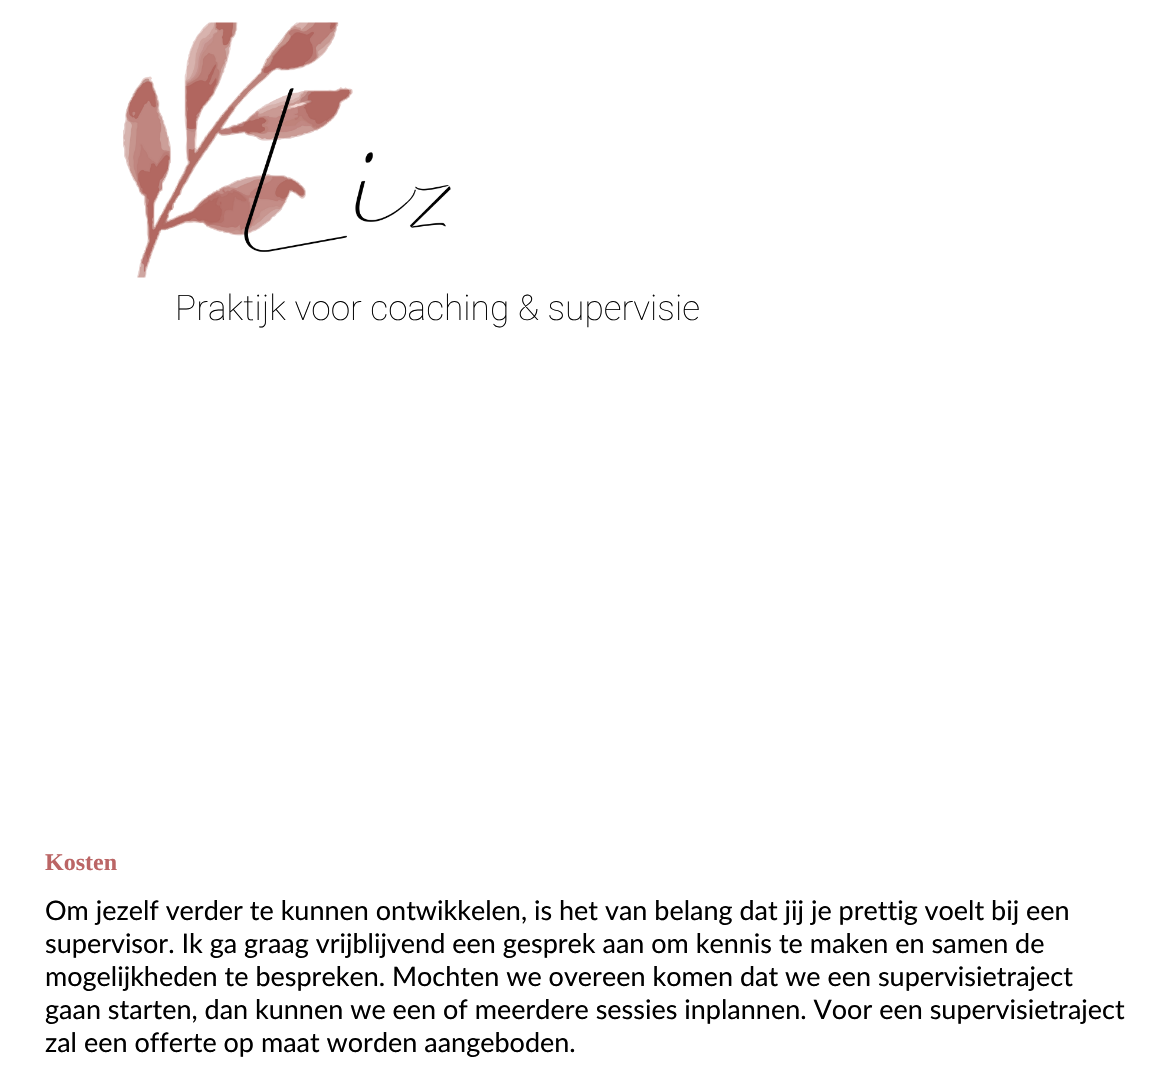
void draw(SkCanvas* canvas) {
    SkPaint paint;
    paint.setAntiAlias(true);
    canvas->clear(0xFFFFFFFF);
    canvas->drawImageRect(SkImages::DeferredFromEncodedData(SkData::MakeFromFileName("img1.png")), SkRect::MakeXYWH(123, 22, 328, 256), SkSamplingOptions());
    SkFont font1(fontMgr->matchFamilyStyle("Roboto", SkFontStyle(100, SkFontStyle::kNormal_Width, SkFontStyle::kUpright_Slant)), 35.25f);
    font1.setSubpixel(true);
    paint.setColor(0xFF000000);
    canvas->drawString("Praktijk voor coaching & supervisie", 175, 320, font1, paint);
    SkFont font2(fontMgr->matchFamilyStyle("Liberation Serif", SkFontStyle::Bold()), 24);
    font2.setSubpixel(true);
    paint.setColor(0xFFBB6565);
    canvas->drawString("Kosten", 45, 870, font2, paint);
    SkFont font3(fontMgr->matchFamilyStyle("Lato", SkFontStyle::Normal()), 27);
    font3.setSubpixel(true);
    paint.setColor(0xFF000000);
    canvas->drawString("Om jezelf verder te kunnen ontwikkelen, is het van belang dat jij je prettig voelt bij een", 45, 920, font3, paint);
    canvas->drawString("supervisor. Ik ga graag vrijblijvend een gesprek aan om kennis te maken en samen de", 45, 953, font3, paint);
    canvas->drawString("mogelijkheden te bespreken. Mochten we overeen komen dat we een supervisietraject", 45, 986, font3, paint);
    canvas->drawString("gaan starten, dan kunnen we een of meerdere sessies inplannen. Voor een supervisietraject", 45, 1019, font3, paint);
    canvas->drawString("zal een offerte op maat worden aangeboden.", 45, 1052, font3, paint);
}
